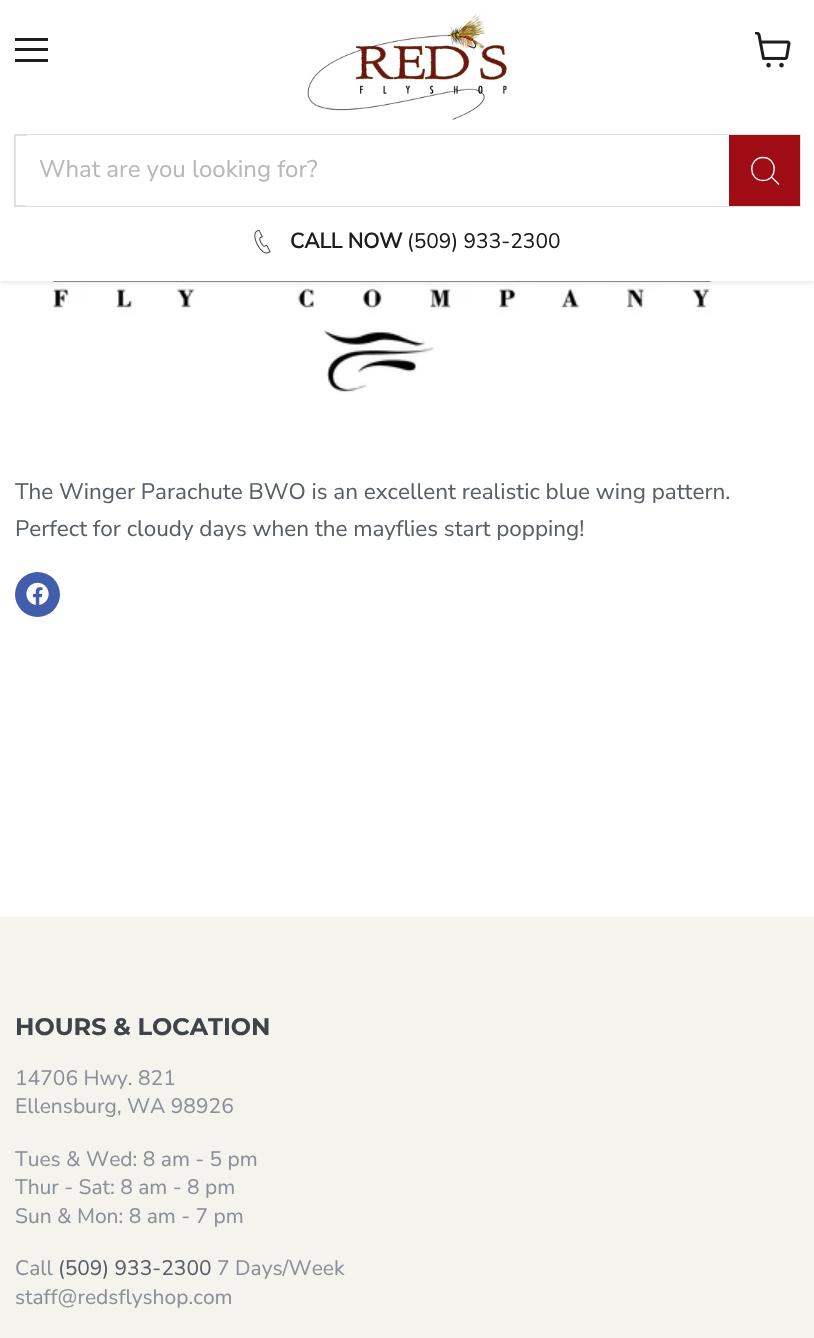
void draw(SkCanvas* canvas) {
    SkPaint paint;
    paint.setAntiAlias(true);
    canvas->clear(0xFFFFFFFF);
    canvas->drawImageRect(SkImages::DeferredFromEncodedData(SkData::MakeFromFileName("img4.png")), SkRect::MakeXYWH(51, 281, 664, 113), SkSamplingOptions());
    paint.setColor(0x40808080);
    paint.setMaskFilter(SkMaskFilter::MakeBlur(kNormal_SkBlurStyle, 3));
    canvas->drawRect(SkRect::MakeXYWH(0, 2, 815, 280), paint);
    paint.setMaskFilter(nullptr);
    paint.setColor(0xFFFFFFFF);
    canvas->drawRect(SkRect::MakeXYWH(0, 0, 814, 281), paint);
    paint.setColor(0xFF1D1D1D);
    canvas->drawRect(SkRect::MakeXYWH(15, 38, 33, 3), paint);
    canvas->drawRect(SkRect::MakeXYWH(15, 48, 33, 3), paint);
    canvas->drawRect(SkRect::MakeXYWH(15, 59, 33, 3), paint);
    canvas->drawImageRect(SkImages::DeferredFromEncodedData(SkData::MakeFromFileName("img1.png")), SkRect::MakeXYWH(755, 32, 36, 36), SkSamplingOptions());
    canvas->drawImageRect(SkImages::DeferredFromEncodedData(SkData::MakeFromFileName("img2.png")), SkRect::MakeXYWH(307, 14, 200, 106), SkSamplingOptions());
    paint.setStyle(SkPaint::kStroke_Style);
    paint.setStrokeWidth(2);
    paint.setColor(0xFFE0E0E0);
    canvas->drawRect(SkRect::MakeXYWH(15, 135, 785, 71), paint);
    paint.setStyle(SkPaint::kFill_Style);
    paint.setColor(0xFFFFFFFF);
    canvas->drawPath(SkPathBuilder().moveTo(29, 135).lineTo(729, 135).lineTo(729, 206).lineTo(29, 206).cubicTo(26, 206, 24, 204, 24, 201).lineTo(24, 140).cubicTo(24, 137, 26, 135, 29, 135).close().detach(), paint);
    SkFont font1(fontMgr->matchFamilyStyle("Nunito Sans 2", SkFontStyle::Normal()), 24);
    font1.setSubpixel(true);
    paint.setColor(0xFFB8B8B8);
    canvas->drawString("What are you looking for?", 39, 177, font1, paint);
    paint.setColor(0xFFA00C14);
    canvas->drawRect(SkRect::MakeXYWH(729, 135, 71, 71), paint);
    paint.setStyle(SkPaint::kStroke_Style);
    paint.setStrokeWidth(1.4f);
    paint.setColor(0xFFFFFFFF);
    canvas->drawPath(SkPathBuilder().moveTo(763, 180.5f).cubicTo(778, 180.5f, 778, 157.5f, 763, 157.5f).cubicTo(748, 157.5f, 748, 180.5f, 763, 180.5f).close().moveTo(771, 176.5f).lineTo(779, 184.5f).detach(), paint);
    canvas->drawImageRect(SkImages::DeferredFromEncodedData(SkData::MakeFromFileName("img3.png")), SkRect::MakeXYWH(254, 230, 17, 24), SkSamplingOptions());
    SkFont font2(fontMgr->matchFamilyStyle("Nunito Sans", SkFontStyle::Bold()), 21);
    font2.setSubpixel(true);
    paint.setStyle(SkPaint::kFill_Style);
    paint.setColor(0xFF1D1D1D);
    canvas->drawString("CALL NOW", 290, 248, font2, paint);
    SkFont font3(fontMgr->matchFamilyStyle("Nunito Sans", SkFontStyle::Normal()), 21);
    font3.setSubpixel(true);
    canvas->drawString("(509) 933-2300", 407, 248, font3, paint);
    SkFont font4(fontMgr->matchFamilyStyle("Nunito Sans", SkFontStyle::Normal()), 22.5f);
    font4.setSubpixel(true);
    paint.setColor(0xFF595F69);
    canvas->drawString("The Winger Parachute BWO is an excellent realistic blue wing pattern.", 15, 499, font4, paint);
    canvas->drawString("Perfect for cloudy days when the mayflies start popping!", 15, 536, font4, paint);
    paint.setColor(0xFF425DAB);
    canvas->drawCircle(37.5f, 594.5f, 22.5f, paint);
    canvas->drawImageRect(SkImages::DeferredFromEncodedData(SkData::MakeFromFileName("img5.png")), SkRect::MakeXYWH(26, 582, 23, 23), SkSamplingOptions());
    paint.setColor(0xFFF5F3ED);
    canvas->drawRect(SkRect::MakeXYWH(0, 917, 814, 421), paint);
    SkFont font5(fontMgr->matchFamilyStyle("Montserrat", SkFontStyle::Bold()), 24);
    font5.setSubpixel(true);
    paint.setColor(0xFF3F434A);
    canvas->drawString("HOURS & LOCATION", 15, 1035, font5, paint);
    paint.setColor(0xFF8A9099);
    canvas->drawString("14706 Hwy. 821", 15, 1085, font3, paint);
    canvas->drawString("Ellensburg, WA 98926", 15, 1113, font3, paint);
    canvas->drawString("Tues & Wed: 8 am - 5 pm", 15, 1166, font3, paint);
    canvas->drawString("Thur - Sat: 8 am - 8 pm", 15, 1194, font3, paint);
    canvas->drawString("Sun & Mon: 8 am - 7 pm", 15, 1223, font3, paint);
    canvas->drawString("Call", 15, 1275, font3, paint);
    paint.setColor(0xFF595F69);
    canvas->drawString("(509) 933-2300", 58, 1275, font3, paint);
    paint.setColor(0xFF8A9099);
    canvas->drawString("7 Days/Week", 217, 1275, font3, paint);
    canvas->drawString("staff@redsflyshop.com", 15, 1304, font3, paint);
}
